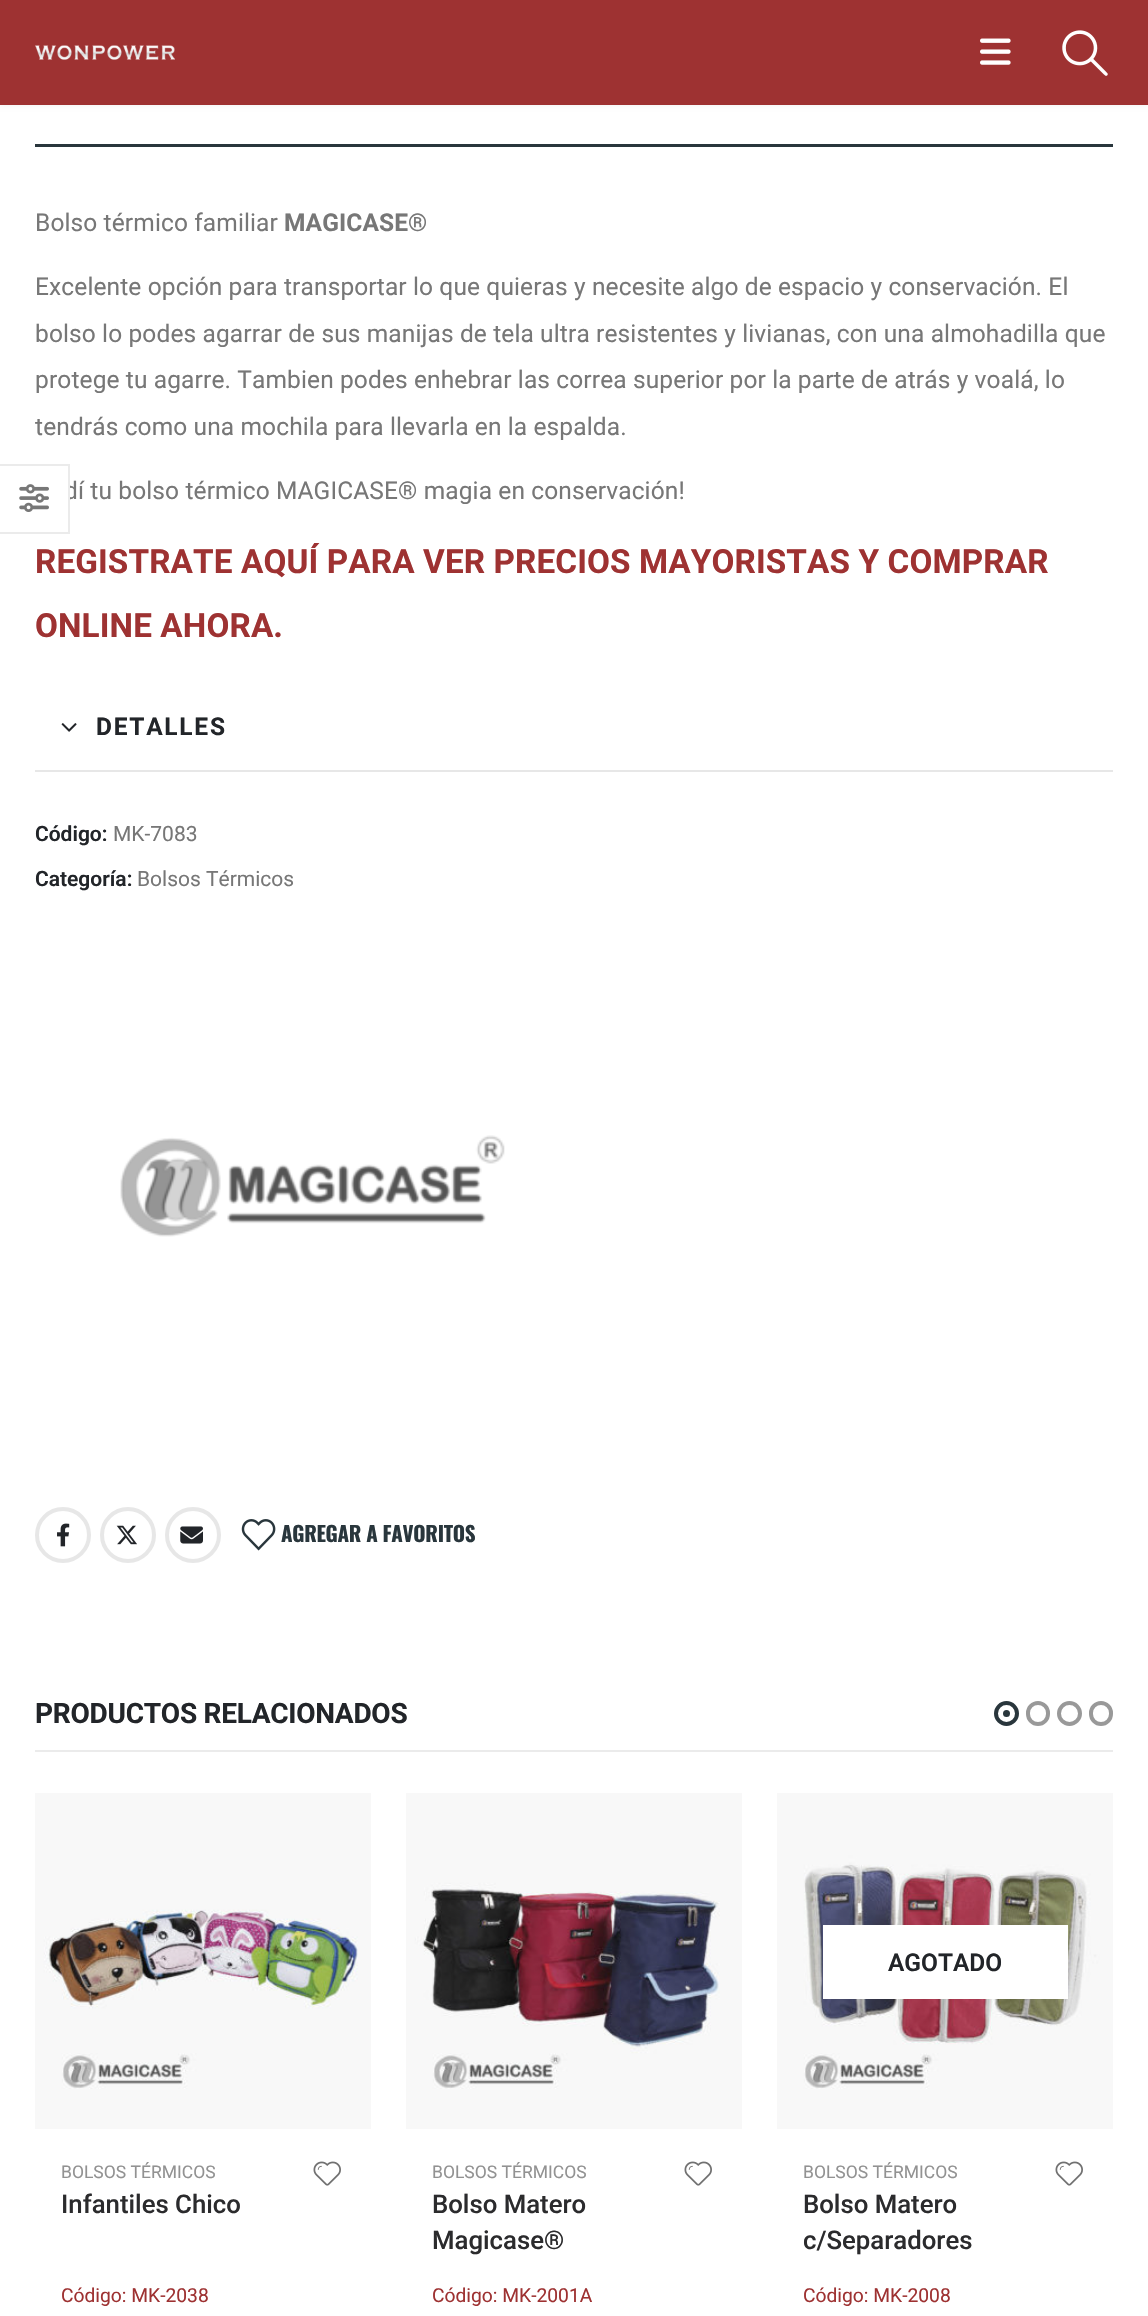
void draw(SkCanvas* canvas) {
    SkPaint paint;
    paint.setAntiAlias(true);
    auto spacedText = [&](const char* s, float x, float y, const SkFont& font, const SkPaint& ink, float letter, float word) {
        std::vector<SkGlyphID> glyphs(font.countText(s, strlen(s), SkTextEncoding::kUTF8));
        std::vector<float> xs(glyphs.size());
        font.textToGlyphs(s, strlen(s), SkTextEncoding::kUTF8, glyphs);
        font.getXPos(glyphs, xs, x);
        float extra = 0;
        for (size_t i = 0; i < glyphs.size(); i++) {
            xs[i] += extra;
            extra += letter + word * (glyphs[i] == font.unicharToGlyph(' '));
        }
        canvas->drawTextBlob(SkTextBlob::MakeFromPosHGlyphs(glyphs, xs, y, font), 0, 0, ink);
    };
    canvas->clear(0xFFFFFFFF);
    paint.setColor(0x0F000000);
    paint.setMaskFilter(SkMaskFilter::MakeBlur(kNormal_SkBlurStyle, 2.5f));
    canvas->drawRect(SkRect::MakeXYWH(0, 0, 1148, 105), paint);
    paint.setMaskFilter(nullptr);
    paint.setColor(0xFF9E3232);
    canvas->drawRect(SkRect::MakeXYWH(0, 0, 1148, 105), paint);
    canvas->drawImageRect(SkImages::DeferredFromEncodedData(SkData::MakeFromFileName("img1.png")), SkRect::MakeXYWH(35, 45, 140, 15), SkSamplingOptions());
    canvas->drawImageRect(SkImages::DeferredFromEncodedData(SkData::MakeFromFileName("img2.png")), SkRect::MakeXYWH(980, 38, 31, 27), SkSamplingOptions());
    canvas->drawImageRect(SkImages::DeferredFromEncodedData(SkData::MakeFromFileName("img3.png")), SkRect::MakeXYWH(1062, 30, 46, 46), SkSamplingOptions());
    paint.setColor(0xFF29363C);
    canvas->drawRect(SkRect::MakeXYWH(35, 144, 1078, 3), paint);
    SkFont font1(fontMgr->matchFamilyStyle("Roboto", SkFontStyle::Normal()), 24.5f);
    font1.setSubpixel(true);
    paint.setColor(0xFF777777);
    spacedText("Bolso térmico familiar", 35, 231, font1, paint, 0.12f, 0);
    SkFont font2(fontMgr->matchFamilyStyle("Roboto", SkFontStyle::Bold()), 24.5f);
    font2.setSubpixel(true);
    spacedText("MAGICASE®", 284, 231, font2, paint, 0.12f, 0);
    spacedText("Excelente opción para transportar lo que quieras y necesite algo de espacio y conservación. El", 35, 295, font1, paint, 0.12f, 0);
    spacedText("bolso lo podes agarrar de sus manijas de tela ultra resistentes y livianas, con una almohadilla que", 35, 342, font1, paint, 0.12f, 0);
    spacedText("protege tu agarre. Tambien podes enhebrar las correa superior por la parte de atrás y voalá, lo", 35, 388, font1, paint, 0.12f, 0);
    spacedText("tendrás como una mochila para llevarla en la espalda.", 35, 435, font1, paint, 0.12f, 0);
    spacedText("dí tu bolso térmico MAGICASE® magia en conservación!", 64, 499, font1, paint, 0.12f, 0);
    SkFont font3(fontMgr->matchFamilyStyle("Roboto", SkFontStyle::Bold()), 33.25f);
    font3.setSubpixel(true);
    paint.setColor(0xFF9E3232);
    spacedText("REGISTRATE AQUÍ PARA VER PRECIOS MAYORISTAS Y COMPRAR", 35, 573, font3, paint, 0.12f, 0);
    spacedText("ONLINE AHORA.", 35, 637, font3, paint, 0.12f, 0);
    paint.setColor(0xFFE7E7E7);
    canvas->drawRect(SkRect::MakeXYWH(35, 770, 1078, 2), paint);
    canvas->drawImageRect(SkImages::DeferredFromEncodedData(SkData::MakeFromFileName("img4.png")), SkRect::MakeXYWH(61, 723, 16, 9), SkSamplingOptions());
    paint.setColor(0xFF222529);
    spacedText("DETALLES", 96, 735, font2, paint, 1.75f, 0);
    SkFont font4(fontMgr->matchFamilyStyle("Roboto", SkFontStyle(600, SkFontStyle::kNormal_Width, SkFontStyle::kUpright_Slant)), 21);
    font4.setSubpixel(true);
    canvas->drawString("Código:", 35, 841, font4, paint);
    SkFont font5(fontMgr->matchFamilyStyle("Roboto", SkFontStyle::Normal()), 21);
    font5.setSubpixel(true);
    paint.setColor(0xFF777777);
    canvas->drawString("MK-7083", 113, 841, font5, paint);
    paint.setColor(0xFF222529);
    canvas->drawString("Categoría:", 35, 886, font4, paint);
    paint.setColor(0xFF777777);
    canvas->drawString("Bolsos Térmicos", 137, 886, font5, paint);
    canvas->drawImageRect(SkImages::DeferredFromEncodedData(SkData::MakeFromFileName("img5.png")), SkRect::MakeXYWH(120, 1135, 385, 102), SkSamplingOptions());
    paint.setStyle(SkPaint::kStroke_Style);
    paint.setStrokeWidth(4);
    paint.setColor(0xFFE7E7E7);
    canvas->drawCircle(63, 1535, 26, paint);
    canvas->drawImageRect(SkImages::DeferredFromEncodedData(SkData::MakeFromFileName("img6.png")), SkRect::MakeXYWH(57, 1523, 13, 24), SkSamplingOptions());
    canvas->drawCircle(128, 1535, 26, paint);
    canvas->drawImageRect(SkImages::DeferredFromEncodedData(SkData::MakeFromFileName("img7.png")), SkRect::MakeXYWH(116, 1525, 21, 20), SkSamplingOptions());
    canvas->drawCircle(193, 1535, 26, paint);
    canvas->drawImageRect(SkImages::DeferredFromEncodedData(SkData::MakeFromFileName("img8.png")), SkRect::MakeXYWH(180, 1526, 23, 18), SkSamplingOptions());
    canvas->drawImageRect(SkImages::DeferredFromEncodedData(SkData::MakeFromFileName("img9.png")), SkRect::MakeXYWH(241, 1519, 35, 32), SkSamplingOptions());
    SkFont font6(fontMgr->matchFamilyStyle("Oswald", SkFontStyle::Bold()), 21);
    font6.setSubpixel(true);
    paint.setStyle(SkPaint::kFill_Style);
    paint.setColor(0xFF29363C);
    spacedText("AGREGAR A FAVORITOS", 281, 1542, font6, paint, -0.3f, 0);
    paint.setColor(0xFFFFFFFF);
    canvas->drawRect(SkRect::MakeXYWH(64, 485, 6, 15), paint);
    paint.setColor(0xFFEBEBEB);
    canvas->drawPath(SkPathBuilder().moveTo(0, 464).lineTo(70, 464).lineTo(68, 466).lineTo(0, 466).close().detach(), paint);
    paint.setColor(0x14000000);
    canvas->drawPath(SkPathBuilder().moveTo(70, 464).lineTo(70, 534).lineTo(68, 532).lineTo(68, 466).close().detach(), paint);
    canvas->drawPath(SkPathBuilder().moveTo(70, 534).lineTo(0, 534).lineTo(0, 532).lineTo(68, 532).close().detach(), paint);
    canvas->drawImageRect(SkImages::DeferredFromEncodedData(SkData::MakeFromFileName("img10.png")), SkRect::MakeXYWH(19, 484, 30, 28), SkSamplingOptions());
    paint.setColor(0xFFEBEBEB);
    canvas->drawRect(SkRect::MakeXYWH(35, 1750, 1078, 2), paint);
    SkFont font7(fontMgr->matchFamilyStyle("Roboto", SkFontStyle::Bold()), 28);
    font7.setSubpixel(true);
    paint.setColor(0xFF222529);
    spacedText("PRODUCTOS RELACIONADOS", 35, 1723, font7, paint, -0.25f, 0);
    paint.setStyle(SkPaint::kStroke_Style);
    paint.setColor(0xFF29363C);
    canvas->drawCircle(1006.5f, 1713.5f, 10.5f, paint);
    paint.setStyle(SkPaint::kFill_Style);
    canvas->drawCircle(1006.5f, 1713.5f, 3.5f, paint);
    paint.setStyle(SkPaint::kStroke_Style);
    paint.setColor(0xFF999999);
    canvas->drawRoundRect(SkRect::MakeXYWH(1028, 1703, 20, 21), 10, 10, paint);
    canvas->drawCircle(1069.5f, 1713.5f, 10.5f, paint);
    canvas->drawRoundRect(SkRect::MakeXYWH(1091, 1703, 20, 21), 10, 10, paint);
    canvas->drawImageRect(SkImages::DeferredFromEncodedData(SkData::MakeFromFileName("img11.png")), SkRect::MakeXYWH(35, 1793, 336, 336), SkSamplingOptions());
    SkFont font8(fontMgr->matchFamilyStyle("Roboto", SkFontStyle::Normal()), 17.5f);
    font8.setSubpixel(true);
    paint.setStyle(SkPaint::kFill_Style);
    paint.setColor(0xFF929292);
    canvas->drawString("BOLSOS TÉRMICOS", 61, 2178, font8, paint);
    canvas->drawImageRect(SkImages::DeferredFromEncodedData(SkData::MakeFromFileName("img12.png")), SkRect::MakeXYWH(313, 2161, 28, 25), SkSamplingOptions());
    SkFont font9(fontMgr->matchFamilyStyle("Roboto", SkFontStyle(500, SkFontStyle::kNormal_Width, SkFontStyle::kUpright_Slant)), 25.75f);
    font9.setSubpixel(true);
    paint.setColor(0xFF2B2B2D);
    canvas->drawString("Infantiles Chico", 61, 2213, font9, paint);
    SkFont font10(fontMgr->matchFamilyStyle("Roboto", SkFontStyle::Normal()), 19.25f);
    font10.setSubpixel(true);
    paint.setColor(0xFF9E3232);
    canvas->drawString("Código: MK-2038", 61, 2302, font10, paint);
    canvas->drawImageRect(SkImages::DeferredFromEncodedData(SkData::MakeFromFileName("img13.png")), SkRect::MakeXYWH(406, 1793, 336, 336), SkSamplingOptions());
    paint.setColor(0xFF929292);
    canvas->drawString("BOLSOS TÉRMICOS", 432, 2178, font8, paint);
    canvas->drawImageRect(SkImages::DeferredFromEncodedData(SkData::MakeFromFileName("img12.png")), SkRect::MakeXYWH(684, 2161, 28, 25), SkSamplingOptions());
    paint.setColor(0xFF2B2B2D);
    canvas->drawString("Bolso Matero", 432, 2213, font9, paint);
    canvas->drawString("Magicase®", 432, 2249, font9, paint);
    paint.setColor(0xFF9E3232);
    canvas->drawString("Código: MK-2001A", 432, 2302, font10, paint);
    canvas->drawImageRect(SkImages::DeferredFromEncodedData(SkData::MakeFromFileName("img14.png")), SkRect::MakeXYWH(777, 1793, 336, 336), SkSamplingOptions());
    paint.setColor(0xFFFFFFFF);
    canvas->drawRect(SkRect::MakeXYWH(823, 1925, 245, 74), paint);
    SkFont font11(fontMgr->matchFamilyStyle("Roboto", SkFontStyle(600, SkFontStyle::kNormal_Width, SkFontStyle::kUpright_Slant)), 24.5f);
    font11.setSubpixel(true);
    paint.setColor(0xFF222529);
    canvas->drawString("AGOTADO", 888, 1971, font11, paint);
    paint.setColor(0xFF929292);
    canvas->drawString("BOLSOS TÉRMICOS", 803, 2178, font8, paint);
    canvas->drawImageRect(SkImages::DeferredFromEncodedData(SkData::MakeFromFileName("img12.png")), SkRect::MakeXYWH(1055, 2161, 28, 25), SkSamplingOptions());
    paint.setColor(0xFF2B2B2D);
    canvas->drawString("Bolso Matero", 803, 2213, font9, paint);
    canvas->drawString("c/Separadores", 803, 2249, font9, paint);
    paint.setColor(0xFF9E3232);
    canvas->drawString("Código: MK-2008", 803, 2302, font10, paint);
}
